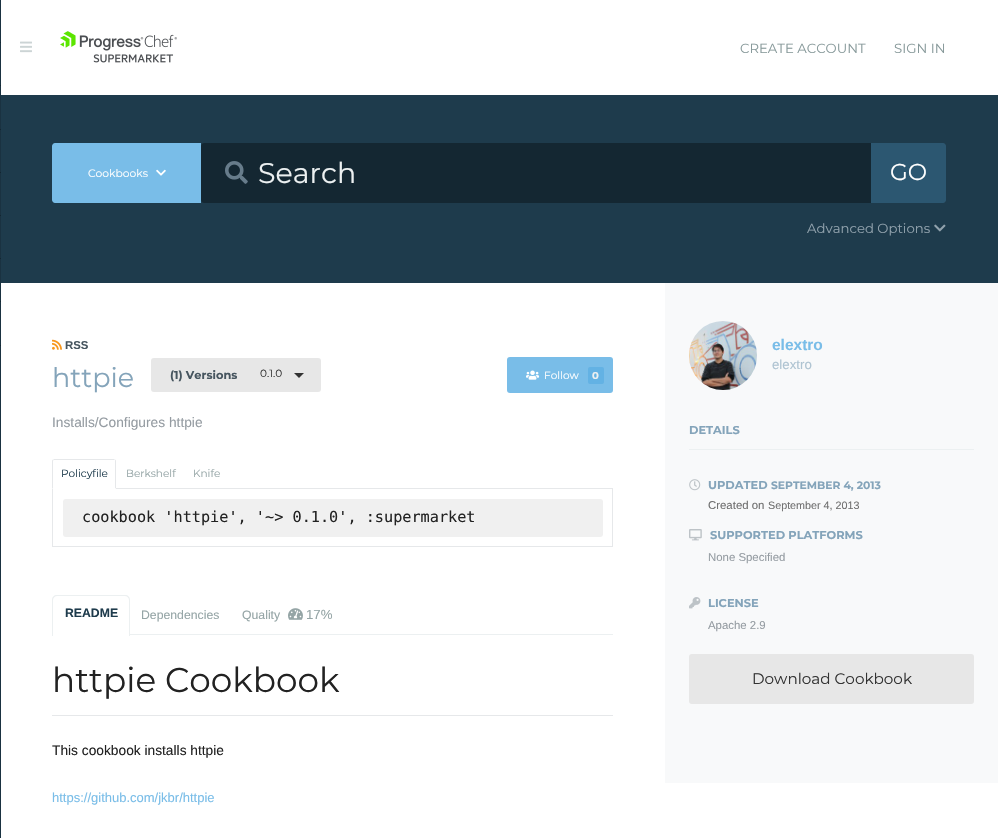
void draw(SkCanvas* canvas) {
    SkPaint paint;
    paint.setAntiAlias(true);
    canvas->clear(0xFFFFFFFF);
    paint.setColor(0xFF1A3241);
    canvas->drawRect(SkRect::MakeXYWH(0, 0, 1, 838), paint);
    paint.setColor(0xFF132631);
    canvas->drawRect(SkRect::MakeXYWH(0, 42, 1, 1), paint);
    canvas->drawRect(SkRect::MakeXYWH(0, 85, 1, 1), paint);
    canvas->drawRect(SkRect::MakeXYWH(0, 129, 1, 1), paint);
    canvas->drawRect(SkRect::MakeXYWH(0, 172, 1, 1), paint);
    canvas->drawRect(SkRect::MakeXYWH(0, 215, 1, 1), paint);
    canvas->drawRect(SkRect::MakeXYWH(0, 258, 1, 1), paint);
    canvas->drawRect(SkRect::MakeXYWH(0, 301, 1, 1), paint);
    canvas->drawRect(SkRect::MakeXYWH(0, 345, 1, 1), paint);
    canvas->drawImageRect(SkImages::DeferredFromEncodedData(SkData::MakeFromFileName("img1.png")), SkRect::MakeXYWH(20, 41, 12, 12), SkSamplingOptions());
    canvas->drawImageRect(SkImages::DeferredFromEncodedData(SkData::MakeFromFileName("img2.png")), SkRect::MakeXYWH(60, 31, 117, 32), SkSamplingOptions());
    SkFont font1(fontMgr->matchFamilyStyle("Montserrat", SkFontStyle::Normal()), 13.25f);
    font1.setSubpixel(true);
    paint.setColor(0xFF87999A);
    canvas->drawString("CREATE ACCOUNT", 740, 53, font1, paint);
    canvas->drawString("SIGN IN", 894, 53, font1, paint);
    paint.setColor(0xFF1E3B4C);
    canvas->drawRect(SkRect::MakeXYWH(1, 95, 997, 188), paint);
    paint.setColor(0xFF79BDE8);
    canvas->drawPath(SkPathBuilder().moveTo(55, 143).lineTo(201, 143).lineTo(201, 203).lineTo(55, 203).cubicTo(53.5f, 203, 52, 201.5f, 52, 200).lineTo(52, 146).cubicTo(52, 144.5f, 53.5f, 143, 55, 143).close().detach(), paint);
    SkFont font2(fontMgr->matchFamilyStyle("Montserrat", SkFontStyle::Normal()), 10.75f);
    font2.setSubpixel(true);
    paint.setColor(0xFFFFFFFF);
    canvas->drawString("Cookbooks", 88, 177, font2, paint);
    canvas->drawImageRect(SkImages::DeferredFromEncodedData(SkData::MakeFromFileName("img3.png")), SkRect::MakeXYWH(156, 169, 10, 7), SkSamplingOptions());
    paint.setColor(0xFF142732);
    canvas->drawPath(SkPathBuilder().moveTo(204, 143).lineTo(871, 143).lineTo(871, 203).lineTo(204, 203).cubicTo(202.5f, 203, 201, 201.5f, 201, 200).lineTo(201, 146).cubicTo(201, 144.5f, 202.5f, 143, 204, 143).close().detach(), paint);
    canvas->drawImageRect(SkImages::DeferredFromEncodedData(SkData::MakeFromFileName("img4.png")), SkRect::MakeXYWH(225, 161, 23, 23), SkSamplingOptions());
    SkFont font3(fontMgr->matchFamilyStyle("Montserrat", SkFontStyle::Normal()), 28.5f);
    font3.setSubpixel(true);
    paint.setColor(0xFFECF0F1);
    canvas->drawString("Search", 258, 183, font3, paint);
    paint.setColor(0xFF2C5771);
    canvas->drawPath(SkPathBuilder().moveTo(871, 143).lineTo(943, 143).cubicTo(944.5f, 143, 946, 144.5f, 946, 146).lineTo(946, 200).cubicTo(946, 201.5f, 944.5f, 203, 943, 203).lineTo(871, 203).close().detach(), paint);
    SkFont font4(fontMgr->matchFamilyStyle("Montserrat", SkFontStyle::Normal()), 23);
    font4.setSubpixel(true);
    paint.setColor(0xFFFFFFFF);
    canvas->drawString("GO", 890, 180, font4, paint);
    paint.setColor(0xFF91A2AD);
    canvas->drawString("Advanced Options", 807, 233, font1, paint);
    canvas->drawImageRect(SkImages::DeferredFromEncodedData(SkData::MakeFromFileName("img5.png")), SkRect::MakeXYWH(934, 224, 12, 8), SkSamplingOptions());
    canvas->drawImageRect(SkImages::DeferredFromEncodedData(SkData::MakeFromFileName("img6.png")), SkRect::MakeXYWH(52, 339, 10, 11), SkSamplingOptions());
    SkFont font5(fontMgr->matchFamilyStyle("Liberation Sans", SkFontStyle::Bold()), 11.4f);
    font5.setSubpixel(true);
    paint.setColor(0xFF46555F);
    canvas->drawString("RSS", 65, 349, font5, paint);
    SkFont font6(fontMgr->matchFamilyStyle("Montserrat", SkFontStyle::Normal()), 27);
    font6.setSubpixel(true);
    paint.setColor(0xFF84A4BA);
    canvas->drawString("httpie", 52, 387, font6, paint);
    paint.setColor(0xFFE7E7E7);
    canvas->drawRoundRect(SkRect::MakeXYWH(151, 358, 170, 34), 3, 3, paint);
    SkFont font7(fontMgr->matchFamilyStyle("Montserrat", SkFontStyle::Bold()), 11.4f);
    font7.setSubpixel(true);
    paint.setColor(0xFF46555F);
    canvas->drawString("(1) Versions", 170, 379, font7, paint);
    SkFont font8(fontMgr->matchFamilyStyle("Montserrat", SkFontStyle::Normal()), 10.5f);
    font8.setSubpixel(true);
    paint.setColor(0xFF333333);
    canvas->drawString("0.1.0", 260, 377, font8, paint);
    canvas->drawPath(SkPathBuilder().moveTo(294, 373).lineTo(304, 373).lineTo(299, 378).close().detach(), paint);
    paint.setColor(0xFF79BDE8);
    canvas->drawRoundRect(SkRect::MakeXYWH(507, 357, 106, 36), 3, 3, paint);
    canvas->drawImageRect(SkImages::DeferredFromEncodedData(SkData::MakeFromFileName("img7.png")), SkRect::MakeXYWH(526, 370, 14, 10), SkSamplingOptions());
    paint.setColor(0xFFFFFFFF);
    canvas->drawString("Follow", 544, 379, font8, paint);
    paint.setColor(0xFF63B2E4);
    canvas->drawRoundRect(SkRect::MakeXYWH(588, 367, 16, 17), 2, 2, paint);
    SkFont font9(fontMgr->matchFamilyStyle("Montserrat", SkFontStyle::Bold()), 10);
    font9.setSubpixel(true);
    paint.setColor(0xFFECF0F1);
    canvas->drawString("0", 592, 379, font9, paint);
    SkFont font10(fontMgr->matchFamilyStyle("Liberation Sans", SkFontStyle::Normal()), 13.75f);
    font10.setSubpixel(true);
    paint.setColor(0xFF959CA2);
    canvas->drawString("Installs/Configures httpie", 52, 427, font10, paint);
    paint.setStyle(SkPaint::kStroke_Style);
    paint.setStrokeWidth(1);
    paint.setColor(0xFFE6E8EA);
    canvas->drawRect(SkRect::MakeXYWH(52.5f, 488.5f, 560, 58), paint);
    paint.setStyle(SkPaint::kFill_Style);
    paint.setColor(0xFFFFFFFF);
    canvas->drawPath(SkPathBuilder().moveTo(54, 459).lineTo(114, 459).cubicTo(115, 459, 116, 460, 116, 461).lineTo(116, 489).lineTo(52, 489).lineTo(52, 461).cubicTo(52, 460, 53, 459, 54, 459).close().detach(), paint);
    paint.setColor(0xFFE6E8EA);
    canvas->drawPath(SkPathBuilder().moveTo(54, 459).lineTo(53, 460).lineTo(54, 460).lineTo(115, 460).lineTo(114, 459).close().moveTo(116, 489).lineTo(116, 461).lineTo(115.5f, 459.5f).lineTo(115, 460).lineTo(115, 488).close().detach(), paint);
    paint.setColor(0xFFFFFFFF);
    canvas->drawPath(SkPathBuilder().moveTo(116, 489).lineTo(115, 488).lineTo(53, 488).lineTo(52, 489).close().detach(), paint);
    paint.setColor(0xFFE6E8EA);
    canvas->drawPath(SkPathBuilder().moveTo(52, 489).lineTo(53, 488).lineTo(53, 461).lineTo(53.5f, 460.5f).lineTo(52.5f, 459.5f).lineTo(52, 461).close().detach(), paint);
    paint.setColor(0xFF1E3B4C);
    canvas->drawString("Policyfile", 61, 477, font8, paint);
    paint.setColor(0xFF95A5A6);
    canvas->drawString("Berkshelf", 126, 477, font8, paint);
    canvas->drawString("Knife", 193, 477, font8, paint);
    paint.setColor(0xFFF0F0F0);
    canvas->drawRoundRect(SkRect::MakeXYWH(63, 499, 540, 38), 3, 3, paint);
    SkFont font11(fontMgr->matchFamilyStyle("DejaVu Sans Mono", SkFontStyle::Normal()), 15.2f);
    font11.setSubpixel(true);
    paint.setColor(0xFF222222);
    canvas->drawString("cookbook 'httpie', '~> 0.1.0', :supermarket", 82, 522, font11, paint);
    paint.setColor(0xFFECF0F1);
    canvas->drawRect(SkRect::MakeXYWH(130, 634, 483, 1), paint);
    canvas->drawPath(SkPathBuilder(SkPathFillType::kEvenOdd).moveTo(57, 595).lineTo(125, 595).cubicTo(128, 595, 130, 597, 130, 600).lineTo(130, 636).lineTo(52, 636).lineTo(52, 600).cubicTo(52, 597, 54, 595, 57, 595).close().moveTo(57, 596).lineTo(125, 596).cubicTo(127, 596, 129, 598, 129, 600).lineTo(129, 636).lineTo(53, 636).lineTo(53, 600).cubicTo(53, 598, 55, 596, 57, 596).close().detach(), paint);
    SkFont font12(fontMgr->matchFamilyStyle("Liberation Sans", SkFontStyle::Bold()), 12.25f);
    font12.setSubpixel(true);
    paint.setColor(0xFF1E3B4C);
    canvas->drawString("README", 65, 617, font12, paint);
    SkFont font13(fontMgr->matchFamilyStyle("Liberation Sans", SkFontStyle::Normal()), 12.25f);
    font13.setSubpixel(true);
    paint.setColor(0xFF95A5A6);
    canvas->drawString("Dependencies", 141, 619, font13, paint);
    canvas->drawString("Quality", 242, 619, font13, paint);
    canvas->drawImageRect(SkImages::DeferredFromEncodedData(SkData::MakeFromFileName("img8.png")), SkRect::MakeXYWH(288, 608, 15, 12), SkSamplingOptions());
    SkFont font14(fontMgr->matchFamilyStyle("Liberation Sans", SkFontStyle::Normal()), 13.25f);
    font14.setSubpixel(true);
    canvas->drawString("17%", 306, 619, font14, paint);
    paint.setColor(0xFFE6E8EA);
    canvas->drawRect(SkRect::MakeXYWH(52, 715, 561, 1), paint);
    SkFont font15(fontMgr->matchFamilyStyle("Montserrat", SkFontStyle::Normal()), 34.25f);
    font15.setSubpixel(true);
    paint.setColor(0xFF222222);
    canvas->drawString("httpie Cookbook", 52, 692, font15, paint);
    canvas->drawString("This cookbook installs httpie", 52, 755, font10, paint);
    SkFont font16(fontMgr->matchFamilyStyle("Liberation Sans", SkFontStyle::Normal()), 13);
    font16.setSubpixel(true);
    paint.setColor(0xFF79BDE8);
    canvas->drawString("https://github.com/jkbr/httpie", 52, 802, font16, paint);
    paint.setColor(0xFFF8F9FA);
    canvas->drawRect(SkRect::MakeXYWH(665, 283, 333, 500), paint);
    canvas->drawImageRect(SkImages::DeferredFromEncodedData(SkData::MakeFromFileName("img9.png")), SkRect::MakeXYWH(689, 321, 68, 69), SkSamplingOptions());
    SkFont font17(fontMgr->matchFamilyStyle("Liberation Sans", SkFontStyle::Bold()), 15.5f);
    font17.setSubpixel(true);
    paint.setColor(0xFF79BDE8);
    canvas->drawString("elextro", 772, 350, font17, paint);
    paint.setColor(0xFFAFC4D2);
    canvas->drawString("elextro", 772, 369, font14, paint);
    paint.setColor(0xFFECF0F1);
    canvas->drawRect(SkRect::MakeXYWH(689, 449, 285, 1), paint);
    paint.setColor(0xFF84A4BA);
    canvas->drawString("DETAILS", 689, 434, font7, paint);
    canvas->drawImageRect(SkImages::DeferredFromEncodedData(SkData::MakeFromFileName("img10.png")), SkRect::MakeXYWH(689, 479, 12, 12), SkSamplingOptions());
    canvas->drawString("UPDATED", 708, 489, font7, paint);
    SkFont font18(fontMgr->matchFamilyStyle("Montserrat", SkFontStyle::Bold()), 10.75f);
    font18.setSubpixel(true);
    canvas->drawString("SEPTEMBER 4, 2013", 771, 489, font18, paint);
    SkFont font19(fontMgr->matchFamilyStyle("Liberation Sans", SkFontStyle::Normal()), 11.4f);
    font19.setSubpixel(true);
    paint.setColor(0xFF6F6F6F);
    canvas->drawString("Created on", 708, 509, font19, paint);
    SkFont font20(fontMgr->matchFamilyStyle("Liberation Sans", SkFontStyle::Normal()), 10.75f);
    font20.setSubpixel(true);
    canvas->drawString("September 4, 2013", 768, 509, font20, paint);
    canvas->drawImageRect(SkImages::DeferredFromEncodedData(SkData::MakeFromFileName("img11.png")), SkRect::MakeXYWH(689, 529, 13, 12), SkSamplingOptions());
    paint.setColor(0xFF84A4BA);
    canvas->drawString("SUPPORTED PLATFORMS", 710, 539, font7, paint);
    paint.setColor(0xFF959CA2);
    canvas->drawString("None Specified", 708, 561, font19, paint);
    canvas->drawImageRect(SkImages::DeferredFromEncodedData(SkData::MakeFromFileName("img12.png")), SkRect::MakeXYWH(689, 597, 12, 12), SkSamplingOptions());
    paint.setColor(0xFF84A4BA);
    canvas->drawString("LICENSE", 708, 607, font7, paint);
    paint.setColor(0xFF959CA2);
    canvas->drawString("Apache 2.9", 708, 629, font19, paint);
    paint.setColor(0xFFE7E7E7);
    canvas->drawRoundRect(SkRect::MakeXYWH(689, 654, 285, 50), 3, 3, paint);
    SkFont font21(fontMgr->matchFamilyStyle("Montserrat", SkFontStyle::Normal()), 15.2f);
    font21.setSubpixel(true);
    paint.setColor(0xFF333333);
    canvas->drawString("Download Cookbook", 752, 684, font21, paint);
}
